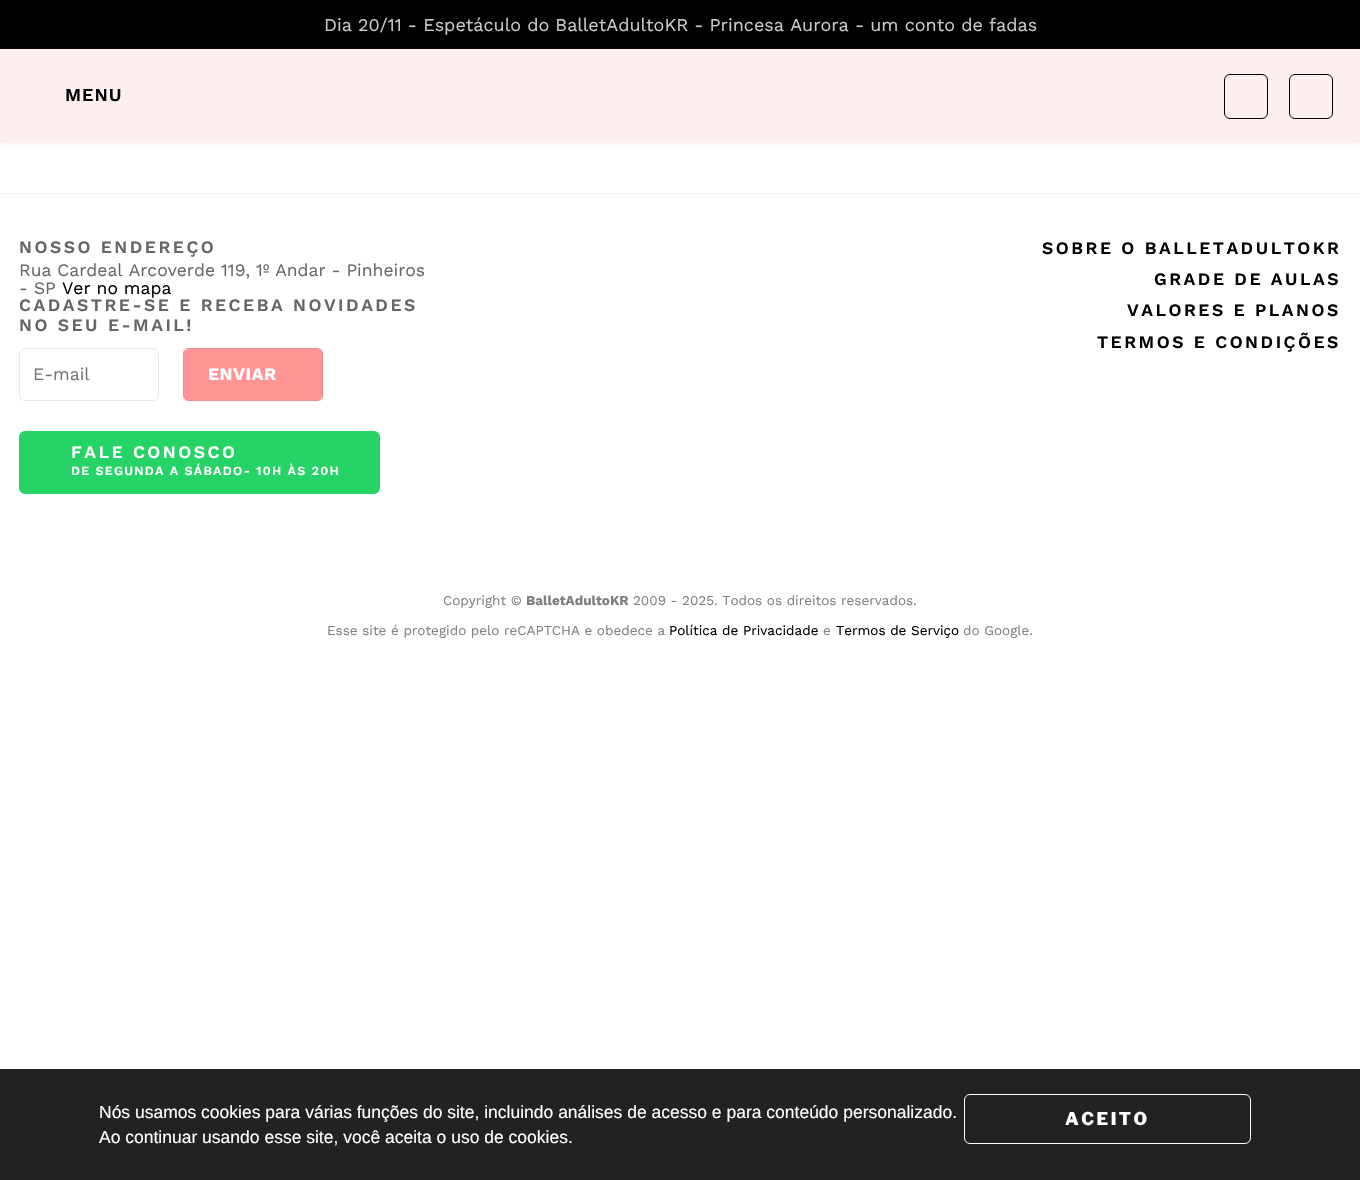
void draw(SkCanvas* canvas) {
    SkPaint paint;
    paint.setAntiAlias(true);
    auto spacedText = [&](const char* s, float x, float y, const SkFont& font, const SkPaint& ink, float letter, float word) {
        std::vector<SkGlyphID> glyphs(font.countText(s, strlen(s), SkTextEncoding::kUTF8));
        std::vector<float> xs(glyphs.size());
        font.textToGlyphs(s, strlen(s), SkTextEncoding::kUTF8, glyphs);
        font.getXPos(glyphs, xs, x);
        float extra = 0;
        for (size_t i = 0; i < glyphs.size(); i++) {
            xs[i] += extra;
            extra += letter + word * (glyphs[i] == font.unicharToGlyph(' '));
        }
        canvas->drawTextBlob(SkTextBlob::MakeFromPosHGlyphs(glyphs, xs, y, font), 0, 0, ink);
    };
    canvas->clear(0xFFFFFFFF);
    paint.setColor(0x1AFF9494);
    paint.setMaskFilter(SkMaskFilter::MakeBlur(kNormal_SkBlurStyle, 2.5f));
    canvas->drawRect(SkRect::MakeXYWH(0, 3, 1360, 142), paint);
    paint.setMaskFilter(nullptr);
    paint.setColor(0xFF000000);
    canvas->drawRect(SkRect::MakeXYWH(0, 0, 1360, 49), paint);
    SkFont font1(fontMgr->matchFamilyStyle("Work Sans", SkFontStyle::Normal()), 18);
    font1.setSubpixel(true);
    paint.setColor(0xFFCCCCCC);
    canvas->drawString("Dia 20/11 - Espetáculo do BalletAdultoKR - Princesa Aurora - um conto de fadas", 324, 31, font1, paint);
    paint.setColor(0xFFFDEFEF);
    canvas->drawRect(SkRect::MakeXYWH(0, 49, 1360, 94), paint);
    SkFont font2(fontMgr->matchFamilyStyle("Work Sans", SkFontStyle(600, SkFontStyle::kNormal_Width, SkFontStyle::kUpright_Slant)), 18);
    font2.setSubpixel(true);
    paint.setColor(0xFF000000);
    spacedText("MENU", 65, 101, font2, paint, 1, 0);
    paint.setStyle(SkPaint::kStroke_Style);
    paint.setStrokeWidth(1);
    canvas->drawRoundRect(SkRect::MakeXYWH(1224.5f, 74.5f, 43, 44), 5.5f, 5.5f, paint);
    canvas->drawRoundRect(SkRect::MakeXYWH(1289.5f, 74.5f, 43, 44), 5.5f, 5.5f, paint);
    paint.setStyle(SkPaint::kFill_Style);
    paint.setColor(0xFFF2F2F2);
    canvas->drawRect(SkRect::MakeXYWH(0, 193, 1360, 1), paint);
    SkFont font3(fontMgr->matchFamilyStyle("Work Sans", SkFontStyle(600, SkFontStyle::kNormal_Width, SkFontStyle::kUpright_Slant)), 17.5f);
    font3.setSubpixel(true);
    paint.setColor(0xFF666666);
    spacedText("NOSSO ENDEREÇO", 19, 253, font3, paint, 2.5f, 0);
    SkFont font4(fontMgr->matchFamilyStyle("Work Sans", SkFontStyle::Normal()), 17.5f);
    font4.setSubpixel(true);
    canvas->drawString("Rua Cardeal Arcoverde 119, 1º Andar - Pinheiros", 19, 276, font4, paint);
    canvas->drawString("- SP", 19, 294, font4, paint);
    paint.setColor(0xFF000000);
    canvas->drawString("Ver no mapa", 62, 294, font4, paint);
    paint.setColor(0xFF666666);
    spacedText("CADASTRE-SE E RECEBA NOVIDADES", 19, 311, font3, paint, 2.5f, 0);
    spacedText("NO SEU E-MAIL!", 19, 331, font3, paint, 2.5f, 0);
    paint.setStyle(SkPaint::kStroke_Style);
    paint.setColor(0xFFE8E8E8);
    canvas->drawRoundRect(SkRect::MakeXYWH(19.5f, 348.5f, 139, 52), 5.5f, 5.5f, paint);
    paint.setStyle(SkPaint::kFill_Style);
    paint.setColor(0xFF757575);
    canvas->drawString("E-mail", 33, 380, font4, paint);
    paint.setColor(0xFFFF9494);
    canvas->drawRoundRect(SkRect::MakeXYWH(183, 348, 140, 53), 6, 6, paint);
    paint.setStyle(SkPaint::kStroke_Style);
    paint.setColor(0x0D000000);
    canvas->drawRect(SkRect::MakeXYWH(183.5f, 348.5f, 139, 52), paint);
    SkFont font5(fontMgr->matchFamilyStyle("Work Sans", SkFontStyle::Bold()), 17.5f);
    font5.setSubpixel(true);
    paint.setStyle(SkPaint::kFill_Style);
    paint.setColor(0xFFFFFFFF);
    spacedText("ENVIAR", 208, 380, font5, paint, 0.5f, 0);
    paint.setColor(0xFF25D366);
    canvas->drawRoundRect(SkRect::MakeXYWH(20.5f, 432.5f, 358, 60), 4.5f, 4.5f, paint);
    paint.setStyle(SkPaint::kStroke_Style);
    paint.setStrokeWidth(3);
    canvas->drawRoundRect(SkRect::MakeXYWH(20.5f, 432.5f, 358, 60), 4.5f, 4.5f, paint);
    paint.setStyle(SkPaint::kFill_Style);
    paint.setColor(0xFFFFFFFF);
    spacedText("FALE CONOSCO", 71, 458, font3, paint, 2.5f, 0);
    SkFont font6(fontMgr->matchFamilyStyle("Work Sans", SkFontStyle(600, SkFontStyle::kNormal_Width, SkFontStyle::kUpright_Slant)), 12.5f);
    font6.setSubpixel(true);
    spacedText("DE SEGUNDA A SÁBADO- 10H ÀS 20H", 71, 475, font6, paint, 1.25f, 0);
    paint.setColor(0xFF000000);
    spacedText("SOBRE O BALLETADULTOKR", 1042, 254, font3, paint, 2.5f, 0);
    spacedText("GRADE DE AULAS", 1154, 285, font3, paint, 2.5f, 0);
    spacedText("VALORES E PLANOS", 1127, 316, font3, paint, 2.5f, 0);
    spacedText("TERMOS E CONDIÇÕES", 1097, 348, font3, paint, 2.5f, 0);
    SkFont font7(fontMgr->matchFamilyStyle("Work Sans", SkFontStyle::Normal()), 13.5f);
    font7.setSubpixel(true);
    paint.setColor(0xFF808080);
    canvas->drawString("Copyright ©", 443, 605, font7, paint);
    SkFont font8(fontMgr->matchFamilyStyle("Work Sans", SkFontStyle::Bold()), 13.5f);
    font8.setSubpixel(true);
    canvas->drawString("BalletAdultoKR", 526, 605, font8, paint);
    canvas->drawString("2009 - 2025. Todos os direitos reservados.", 633, 605, font7, paint);
    canvas->drawString("Esse site é protegido pelo reCAPTCHA e obedece a", 327, 635, font7, paint);
    paint.setColor(0xFF000000);
    canvas->drawString("Política de Privacidade", 669, 635, font7, paint);
    paint.setColor(0xFF808080);
    canvas->drawString("e", 823, 635, font7, paint);
    paint.setColor(0xFF000000);
    canvas->drawString("Termos de Serviço", 836, 635, font7, paint);
    paint.setColor(0xFF808080);
    canvas->drawString("do Google.", 963, 635, font7, paint);
    paint.setColor(0xFF222222);
    canvas->drawRect(SkRect::MakeXYWH(0, 1069, 1360, 111), paint);
    SkFont font9(fontMgr->matchFamilyStyle("Liberation Sans", SkFontStyle::Normal()), 17.5f);
    font9.setSubpixel(true);
    paint.setColor(0xFFFFFFFF);
    canvas->drawString("Nós usamos cookies para várias funções do site, incluindo análises de acesso e para conteúdo personalizado.", 99, 1118, font9, paint);
    canvas->drawString("Ao continuar usando esse site, você aceita o uso de cookies.", 99, 1143, font9, paint);
    paint.setStyle(SkPaint::kStroke_Style);
    paint.setStrokeWidth(1);
    canvas->drawRoundRect(SkRect::MakeXYWH(964.5f, 1094.5f, 286, 49), 5.5f, 5.5f, paint);
    SkFont font10(fontMgr->matchFamilyStyle("Libre Franklin", SkFontStyle(800, SkFontStyle::kNormal_Width, SkFontStyle::kUpright_Slant)), 17.5f);
    font10.setSubpixel(true);
    paint.setStyle(SkPaint::kFill_Style);
    spacedText("ACEITO", 1065, 1125, font10, paint, 2.5f, 0);
}
